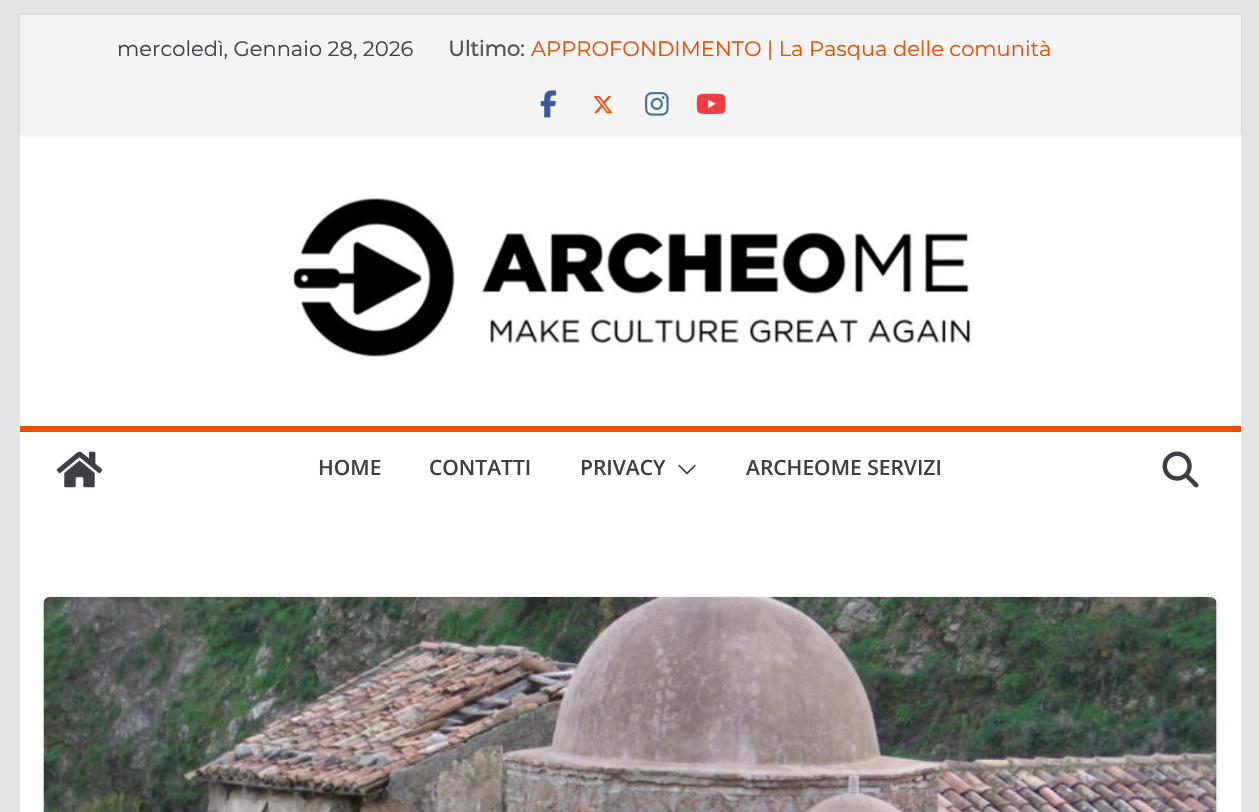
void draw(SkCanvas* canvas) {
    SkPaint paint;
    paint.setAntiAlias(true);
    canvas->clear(0xFFE4E4E7);
    paint.setColor(0xFFFFFFFF);
    canvas->drawRect(SkRect::MakeXYWH(20, 135, 1221, 677), paint);
    paint.setColor(0x1A000000);
    paint.setMaskFilter(SkMaskFilter::MakeBlur(kNormal_SkBlurStyle, 1.5f));
    canvas->drawRect(SkRect::MakeXYWH(20, 15, 1221, 120), paint);
    paint.setMaskFilter(nullptr);
    paint.setColor(0xFFF4F4F5);
    canvas->drawRect(SkRect::MakeXYWH(20, 15, 1221, 120), paint);
    SkFont font1(fontMgr->matchFamilyStyle("Montserrat", SkFontStyle(100, SkFontStyle::kNormal_Width, SkFontStyle::kUpright_Slant)), 21);
    font1.setSubpixel(true);
    paint.setColor(0xFF3F3F46);
    canvas->drawString("mercoledì, Gennaio 28, 2026", 117, 56, font1, paint);
    SkFont font2(fontMgr->matchFamilyStyle("Montserrat", SkFontStyle::Bold()), 21);
    font2.setSubpixel(true);
    paint.setColor(0xFF555555);
    canvas->drawString("Ultimo:", 448, 56, font2, paint);
    paint.setColor(0xFFEA4E00);
    canvas->drawString("APPROFONDIMENTO | La Pasqua delle comunità", 531, 56, font1, paint);
    canvas->drawImageRect(SkImages::DeferredFromEncodedData(SkData::MakeFromFileName("img1.png")), SkRect::MakeXYWH(540, 90, 17, 28), SkSamplingOptions());
    canvas->drawImageRect(SkImages::DeferredFromEncodedData(SkData::MakeFromFileName("img2.png")), SkRect::MakeXYWH(593, 96, 20, 18), SkSamplingOptions());
    canvas->drawImageRect(SkImages::DeferredFromEncodedData(SkData::MakeFromFileName("img3.png")), SkRect::MakeXYWH(645, 92, 24, 24), SkSamplingOptions());
    canvas->drawImageRect(SkImages::DeferredFromEncodedData(SkData::MakeFromFileName("img4.png")), SkRect::MakeXYWH(696, 93, 30, 21), SkSamplingOptions());
    canvas->drawImageRect(SkImages::DeferredFromEncodedData(SkData::MakeFromFileName("img5.png")), SkRect::MakeXYWH(288, 198, 685, 160), SkSamplingOptions());
    canvas->drawRect(SkRect::MakeXYWH(20, 426, 1221, 6), paint);
    canvas->drawImageRect(SkImages::DeferredFromEncodedData(SkData::MakeFromFileName("img6.png")), SkRect::MakeXYWH(56, 451, 47, 37), SkSamplingOptions());
    SkFont font3(fontMgr->matchFamilyStyle("Open Sans", SkFontStyle(600, SkFontStyle::kNormal_Width, SkFontStyle::kUpright_Slant)), 21);
    font3.setSubpixel(true);
    paint.setColor(0xFF3F3F46);
    canvas->drawString("HOME", 318, 475, font3, paint);
    canvas->drawString("CONTATTI", 429, 475, font3, paint);
    canvas->drawString("PRIVACY", 580, 475, font3, paint);
    canvas->drawImageRect(SkImages::DeferredFromEncodedData(SkData::MakeFromFileName("img7.png")), SkRect::MakeXYWH(678, 464, 18, 11), SkSamplingOptions());
    canvas->drawString("ARCHEOME SERVIZI", 746, 475, font3, paint);
    canvas->drawImageRect(SkImages::DeferredFromEncodedData(SkData::MakeFromFileName("img8.png")), SkRect::MakeXYWH(1162, 451, 37, 37), SkSamplingOptions());
    paint.setColor(0xFFE4E4E7);
    paint.setMaskFilter(SkMaskFilter::MakeBlur(kNormal_SkBlurStyle, 1.5f));
    canvas->drawRoundRect(SkRect::MakeXYWH(44, 597, 1173, 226), 6, 6, paint);
    paint.setMaskFilter(nullptr);
    canvas->drawImageRect(SkImages::DeferredFromEncodedData(SkData::MakeFromFileName("img9.png")), SkRect::MakeXYWH(43, 597, 1174, 215), SkSamplingOptions());
}
